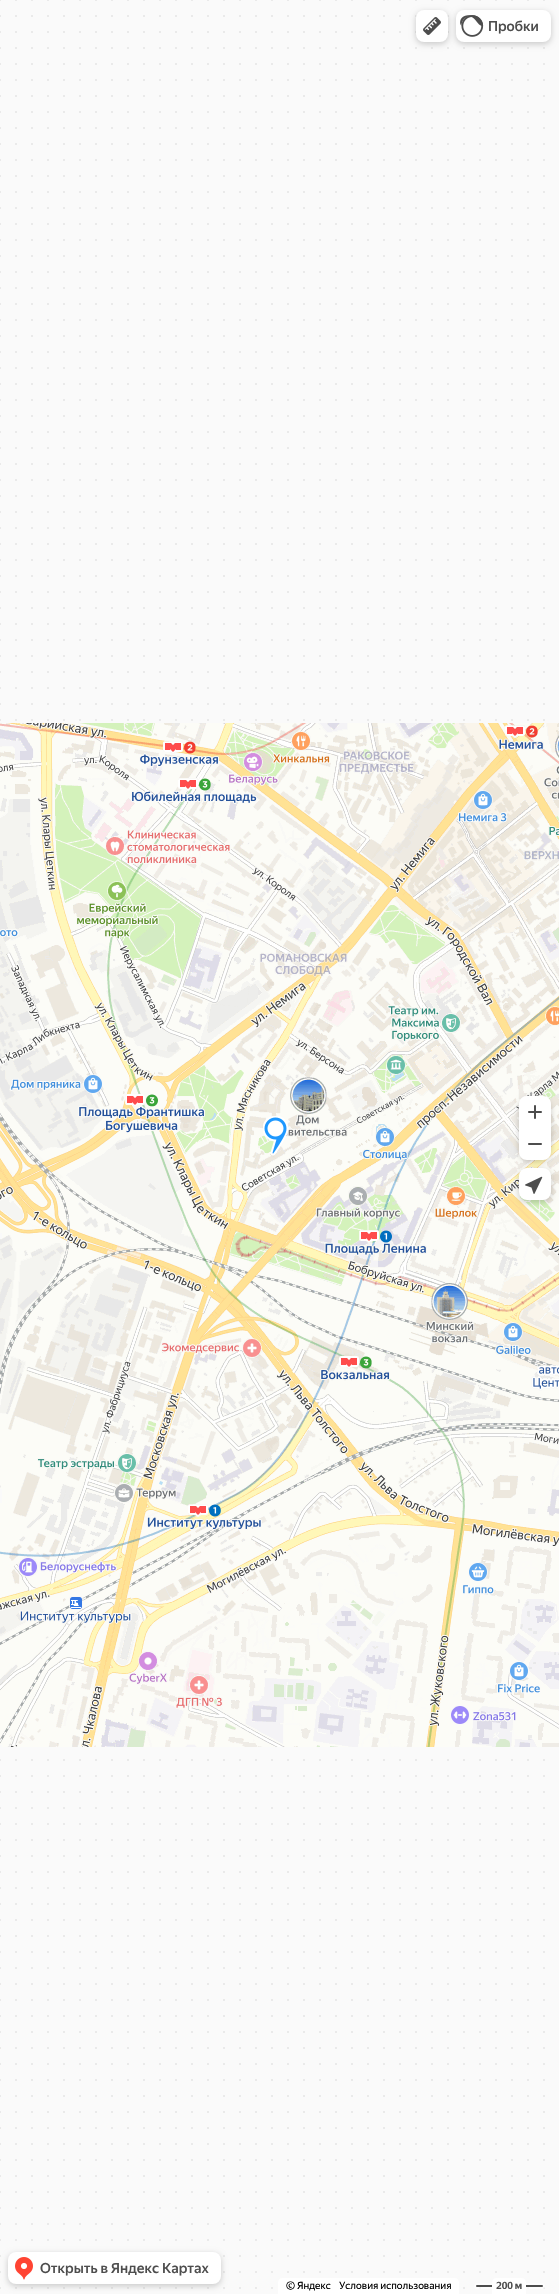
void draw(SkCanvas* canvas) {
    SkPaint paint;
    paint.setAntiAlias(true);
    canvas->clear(0xFFFFFFFF);
    canvas->drawImageRect(SkImages::DeferredFromEncodedData(SkData::MakeFromFileName("img1.png")), SkRect::MakeXYWH(0, 0, 559, 2294), SkSamplingOptions());
    paint.setColor(0x33000000);
    paint.setMaskFilter(SkMaskFilter::MakeBlur(kNormal_SkBlurStyle, 3));
    canvas->drawRoundRect(SkRect::MakeXYWH(416, 12, 32, 32), 8, 8, paint);
    paint.setMaskFilter(nullptr);
    paint.setColor(0xFFFFFFFF);
    canvas->drawRoundRect(SkRect::MakeXYWH(416, 10, 32, 32), 8, 8, paint);
    canvas->drawImageRect(SkImages::DeferredFromEncodedData(SkData::MakeFromFileName("img2.png")), SkRect::MakeXYWH(423, 17, 18, 18), SkSamplingOptions());
    paint.setColor(0x33000000);
    paint.setMaskFilter(SkMaskFilter::MakeBlur(kNormal_SkBlurStyle, 3));
    canvas->drawRoundRect(SkRect::MakeXYWH(456, 12, 95, 32), 8, 8, paint);
    paint.setMaskFilter(nullptr);
    paint.setColor(0xFFFFFFFF);
    canvas->drawRoundRect(SkRect::MakeXYWH(456, 10, 95, 32), 8, 8, paint);
    canvas->drawImageRect(SkImages::DeferredFromEncodedData(SkData::MakeFromFileName("img3.png")), SkRect::MakeXYWH(460, 15, 24, 22), SkSamplingOptions());
    SkFont font1(fontMgr->matchFamilyStyle("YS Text", SkFontStyle(500, SkFontStyle::kNormal_Width, SkFontStyle::kUpright_Slant)), 14);
    font1.setSubpixel(true);
    paint.setColor(0xFF4D4D4D);
    canvas->drawString("Пробки", 488, 31, font1, paint);
    canvas->drawImageRect(SkImages::DeferredFromEncodedData(SkData::MakeFromFileName("img14.png")), SkRect::MakeXYWH(258, 979, 256, 256), SkSamplingOptions());
    canvas->drawImageRect(SkImages::DeferredFromEncodedData(SkData::MakeFromFileName("img15.png")), SkRect::MakeXYWH(514, 979, 45, 256), SkSamplingOptions());
    paint.setColor(0x33000000);
    paint.setMaskFilter(SkMaskFilter::MakeBlur(kNormal_SkBlurStyle, 3));
    canvas->drawRoundRect(SkRect::MakeXYWH(519, 1098, 32, 64), 12, 12, paint);
    paint.setMaskFilter(nullptr);
    paint.setColor(0xFFFFFFFF);
    canvas->drawPath(SkPathBuilder().moveTo(527, 1096).lineTo(543, 1096).cubicTo(547.5f, 1096, 551, 1099.5f, 551, 1104).lineTo(551, 1128).lineTo(519, 1128).lineTo(519, 1104).cubicTo(519, 1099.5f, 522.5f, 1096, 527, 1096).close().detach(), paint);
    canvas->drawImageRect(SkImages::DeferredFromEncodedData(SkData::MakeFromFileName("img4.png")), SkRect::MakeXYWH(528, 1105, 14, 14), SkSamplingOptions());
    canvas->drawPath(SkPathBuilder().moveTo(519, 1128).lineTo(551, 1128).lineTo(551, 1152).cubicTo(551, 1156.5f, 547.5f, 1160, 543, 1160).lineTo(527, 1160).cubicTo(522.5f, 1160, 519, 1156.5f, 519, 1152).close().detach(), paint);
    canvas->drawImageRect(SkImages::DeferredFromEncodedData(SkData::MakeFromFileName("img5.png")), SkRect::MakeXYWH(528, 1143, 14, 2), SkSamplingOptions());
    paint.setColor(0x33000000);
    paint.setMaskFilter(SkMaskFilter::MakeBlur(kNormal_SkBlurStyle, 3));
    canvas->drawRoundRect(SkRect::MakeXYWH(519, 1170, 32, 32), 8, 8, paint);
    paint.setMaskFilter(nullptr);
    paint.setColor(0xFFFFFFFF);
    canvas->drawRoundRect(SkRect::MakeXYWH(519, 1168, 32, 32), 8, 8, paint);
    canvas->drawImageRect(SkImages::DeferredFromEncodedData(SkData::MakeFromFileName("img6.png")), SkRect::MakeXYWH(525, 1176, 18, 18), SkSamplingOptions());
    paint.setColor(0x33000000);
    paint.setMaskFilter(SkMaskFilter::MakeBlur(kNormal_SkBlurStyle, 3));
    canvas->drawRoundRect(SkRect::MakeXYWH(8, 2254, 213, 32), 8, 8, paint);
    paint.setMaskFilter(nullptr);
    paint.setColor(0xFFFFFFFF);
    canvas->drawRoundRect(SkRect::MakeXYWH(8, 2252, 213, 32), 8, 8, paint);
    canvas->drawImageRect(SkImages::DeferredFromEncodedData(SkData::MakeFromFileName("img7.png")), SkRect::MakeXYWH(15, 2257, 18, 23), SkSamplingOptions());
    paint.setColor(0xFF4D4D4D);
    canvas->drawString("Открыть в Яндекс Картах", 40, 2273, font1, paint);
    paint.setColor(0xFFFFFFFF);
    canvas->drawPath(SkPathBuilder().moveTo(282, 2278).lineTo(455, 2278).cubicTo(457, 2278, 459, 2280, 459, 2282).lineTo(459, 2294).lineTo(278, 2294).lineTo(278, 2282).cubicTo(278, 2280, 280, 2278, 282, 2278).close().detach(), paint);
    SkFont font2(fontMgr->matchFamilyStyle("YS Text", SkFontStyle::Normal()), 10);
    font2.setSubpixel(true);
    paint.setColor(0xFF000000);
    canvas->drawString("© Яндекс", 286, 2289, font2, paint);
    canvas->drawString("Условия использования", 339, 2289, font2, paint);
    paint.setColor(0x99FFFFFF);
    canvas->drawRoundRect(SkRect::MakeXYWH(474, 2283, 71, 6), 3, 3, paint);
    paint.setColor(0xFF4D4D4D);
    canvas->drawRoundRect(SkRect::MakeXYWH(476, 2285, 67, 2), 1, 1, paint);
    paint.setColor(0xFFFFFFFF);
    canvas->drawPath(SkPathBuilder().moveTo(496, 2278).lineTo(522, 2278).cubicTo(524, 2278, 526, 2280, 526, 2282).lineTo(526, 2294).lineTo(492, 2294).lineTo(492, 2282).cubicTo(492, 2280, 494, 2278, 496, 2278).close().detach(), paint);
    SkFont font3(fontMgr->matchFamilyStyle("YS Text", SkFontStyle::Bold()), 10);
    font3.setSubpixel(true);
    paint.setColor(0xFF4D4D4D);
    canvas->drawString("200 м", 496, 2289, font3, paint);
    canvas->drawImageRect(SkImages::DeferredFromEncodedData(SkData::MakeFromFileName("img8.png")), SkRect::MakeXYWH(0, 723, 2, 256), SkSamplingOptions());
    canvas->drawImageRect(SkImages::DeferredFromEncodedData(SkData::MakeFromFileName("img9.png")), SkRect::MakeXYWH(2, 723, 256, 256), SkSamplingOptions());
    canvas->drawImageRect(SkImages::DeferredFromEncodedData(SkData::MakeFromFileName("img10.png")), SkRect::MakeXYWH(258, 723, 256, 256), SkSamplingOptions());
    canvas->drawImageRect(SkImages::DeferredFromEncodedData(SkData::MakeFromFileName("img11.png")), SkRect::MakeXYWH(514, 723, 45, 256), SkSamplingOptions());
    canvas->drawImageRect(SkImages::DeferredFromEncodedData(SkData::MakeFromFileName("img12.png")), SkRect::MakeXYWH(0, 979, 2, 254), SkSamplingOptions());
    canvas->drawImageRect(SkImages::DeferredFromEncodedData(SkData::MakeFromFileName("img13.png")), SkRect::MakeXYWH(2, 979, 256, 256), SkSamplingOptions());
    canvas->drawImageRect(SkImages::DeferredFromEncodedData(SkData::MakeFromFileName("img16.png")), SkRect::MakeXYWH(0, 1239, 2, 250), SkSamplingOptions());
    canvas->drawImageRect(SkImages::DeferredFromEncodedData(SkData::MakeFromFileName("img17.png")), SkRect::MakeXYWH(2, 1235, 256, 256), SkSamplingOptions());
    canvas->drawImageRect(SkImages::DeferredFromEncodedData(SkData::MakeFromFileName("img18.png")), SkRect::MakeXYWH(258, 1235, 256, 256), SkSamplingOptions());
    canvas->drawImageRect(SkImages::DeferredFromEncodedData(SkData::MakeFromFileName("img19.png")), SkRect::MakeXYWH(514, 1235, 45, 256), SkSamplingOptions());
    canvas->drawImageRect(SkImages::DeferredFromEncodedData(SkData::MakeFromFileName("img20.png")), SkRect::MakeXYWH(0, 1503, 2, 242), SkSamplingOptions());
    canvas->drawImageRect(SkImages::DeferredFromEncodedData(SkData::MakeFromFileName("img21.png")), SkRect::MakeXYWH(2, 1491, 256, 256), SkSamplingOptions());
    canvas->drawImageRect(SkImages::DeferredFromEncodedData(SkData::MakeFromFileName("img22.png")), SkRect::MakeXYWH(258, 1491, 256, 256), SkSamplingOptions());
    canvas->drawImageRect(SkImages::DeferredFromEncodedData(SkData::MakeFromFileName("img23.png")), SkRect::MakeXYWH(514, 1491, 45, 256), SkSamplingOptions());
    canvas->drawImageRect(SkImages::DeferredFromEncodedData(SkData::MakeFromFileName("img24.png")), SkRect::MakeXYWH(263, 1116, 26, 40), SkSamplingOptions());
}
